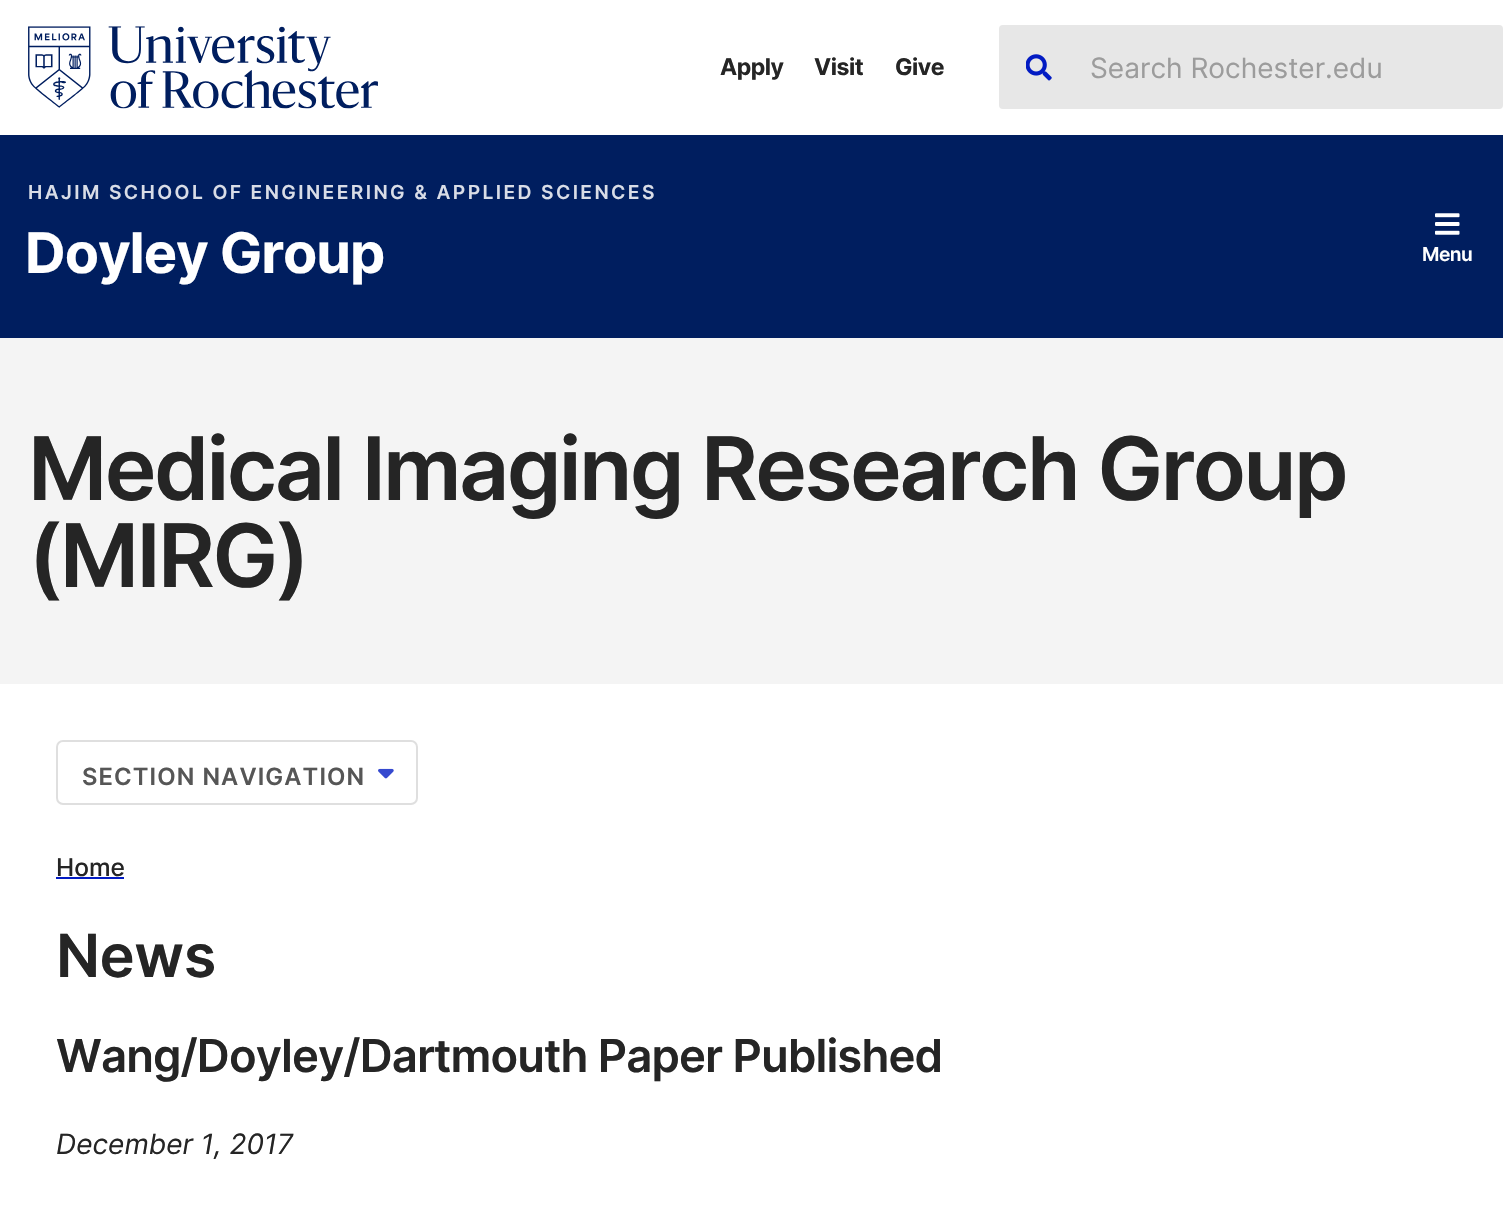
void draw(SkCanvas* canvas) {
    SkPaint paint;
    paint.setAntiAlias(true);
    auto spacedText = [&](const char* s, float x, float y, const SkFont& font, const SkPaint& ink, float letter, float word) {
        std::vector<SkGlyphID> glyphs(font.countText(s, strlen(s), SkTextEncoding::kUTF8));
        std::vector<float> xs(glyphs.size());
        font.textToGlyphs(s, strlen(s), SkTextEncoding::kUTF8, glyphs);
        font.getXPos(glyphs, xs, x);
        float extra = 0;
        for (size_t i = 0; i < glyphs.size(); i++) {
            xs[i] += extra;
            extra += letter + word * (glyphs[i] == font.unicharToGlyph(' '));
        }
        canvas->drawTextBlob(SkTextBlob::MakeFromPosHGlyphs(glyphs, xs, y, font), 0, 0, ink);
    };
    canvas->clear(0xFFFFFFFF);
    paint.setColor(0xFF001E5F);
    canvas->drawRect(SkRect::MakeXYWH(0, 135, 1503, 203), paint);
    canvas->drawImageRect(SkImages::DeferredFromEncodedData(SkData::MakeFromFileName("img1.png")), SkRect::MakeXYWH(28, 26, 350, 83), SkSamplingOptions());
    SkFont font1(fontMgr->matchFamilyStyle("Inter", SkFontStyle::Bold()), 23);
    font1.setSubpixel(true);
    paint.setColor(0xFF252525);
    spacedText("Apply", 720, 75, font1, paint, -0.5f, 0);
    spacedText("Visit", 814, 75, font1, paint, -0.5f, 0);
    spacedText("Give", 895, 75, font1, paint, -0.5f, 0);
    paint.setColor(0xFFE7E7E7);
    canvas->drawRoundRect(SkRect::MakeXYWH(999, 25, 504, 84), 4, 4, paint);
    canvas->drawImageRect(SkImages::DeferredFromEncodedData(SkData::MakeFromFileName("img2.png")), SkRect::MakeXYWH(1026, 54, 26, 27), SkSamplingOptions());
    SkFont font2(fontMgr->matchFamilyStyle("Inter", SkFontStyle::Normal()), 28);
    font2.setSubpixel(true);
    paint.setColor(0xFF9C9C9C);
    canvas->drawString("Search Rochester.edu", 1090, 78, font2, paint);
    SkFont font3(fontMgr->matchFamilyStyle("Inter", SkFontStyle(600, SkFontStyle::kNormal_Width, SkFontStyle::kUpright_Slant)), 19.25f);
    font3.setSubpixel(true);
    paint.setColor(0xFFD9DDE7);
    spacedText("HAJIM SCHOOL OF ENGINEERING & APPLIED SCIENCES", 28, 199, font3, paint, 2.4f, 0);
    SkFont font4(fontMgr->matchFamilyStyle("Inter", SkFontStyle::Bold()), 56);
    font4.setSubpixel(true);
    paint.setColor(0xFFFFFFFF);
    spacedText("Doyley Group", 25, 273, font4, paint, -1.1f, 0);
    canvas->drawImageRect(SkImages::DeferredFromEncodedData(SkData::MakeFromFileName("img3.png")), SkRect::MakeXYWH(1435, 213, 25, 22), SkSamplingOptions());
    spacedText("Menu", 1422, 261, font3, paint, -0.5f, 0);
    paint.setColor(0xFFF4F4F4);
    canvas->drawRect(SkRect::MakeXYWH(0, 338, 1503, 346), paint);
    SkFont font5(fontMgr->matchFamilyStyle("Inter", SkFontStyle(600, SkFontStyle::kNormal_Width, SkFontStyle::kUpright_Slant)), 87.5f);
    font5.setSubpixel(true);
    paint.setColor(0xFF252525);
    spacedText("Medical Imaging Research Group", 28, 500, font5, paint, -2.6f, 0);
    spacedText("(MIRG)", 28, 587, font5, paint, -2.6f, 0);
    paint.setStyle(SkPaint::kStroke_Style);
    paint.setStrokeWidth(2);
    paint.setColor(0xFFDFDFDF);
    canvas->drawRoundRect(SkRect::MakeXYWH(57, 741, 360, 63), 6, 6, paint);
    SkFont font6(fontMgr->matchFamilyStyle("Inter", SkFontStyle(600, SkFontStyle::kNormal_Width, SkFontStyle::kUpright_Slant)), 23.75f);
    font6.setSubpixel(true);
    paint.setStyle(SkPaint::kFill_Style);
    paint.setColor(0xFF565656);
    spacedText("SECTION NAVIGATION", 82, 785, font6, paint, 1.1f, 0);
    canvas->drawImageRect(SkImages::DeferredFromEncodedData(SkData::MakeFromFileName("img4.png")), SkRect::MakeXYWH(378, 768, 16, 11), SkSamplingOptions());
    SkFont font7(fontMgr->matchFamilyStyle("Inter", SkFontStyle(500, SkFontStyle::kNormal_Width, SkFontStyle::kUpright_Slant)), 24.5f);
    font7.setSubpixel(true);
    paint.setColor(0xFF252525);
    canvas->drawString("Home", 56, 876, font7, paint);
    paint.setColor(0xFF021BC3);
    canvas->drawRect(SkRect::MakeXYWH(56, 877, 68, 2), paint);
    SkFont font8(fontMgr->matchFamilyStyle("Inter", SkFontStyle(600, SkFontStyle::kNormal_Width, SkFontStyle::kUpright_Slant)), 59.5f);
    font8.setSubpixel(true);
    paint.setColor(0xFF252525);
    spacedText("News", 56, 977, font8, paint, -0.5f, 0);
    SkFont font9(fontMgr->matchFamilyStyle("Inter", SkFontStyle(600, SkFontStyle::kNormal_Width, SkFontStyle::kUpright_Slant)), 45.5f);
    font9.setSubpixel(true);
    spacedText("Wang/Doyley/Dartmouth Paper Published", 56, 1072, font9, paint, -0.9f, 0);
    SkFont font10(fontMgr->matchFamilyStyle("Inter", SkFontStyle::Italic()), 28);
    font10.setSubpixel(true);
    canvas->drawString("December 1, 2017", 56, 1154, font10, paint);
}
